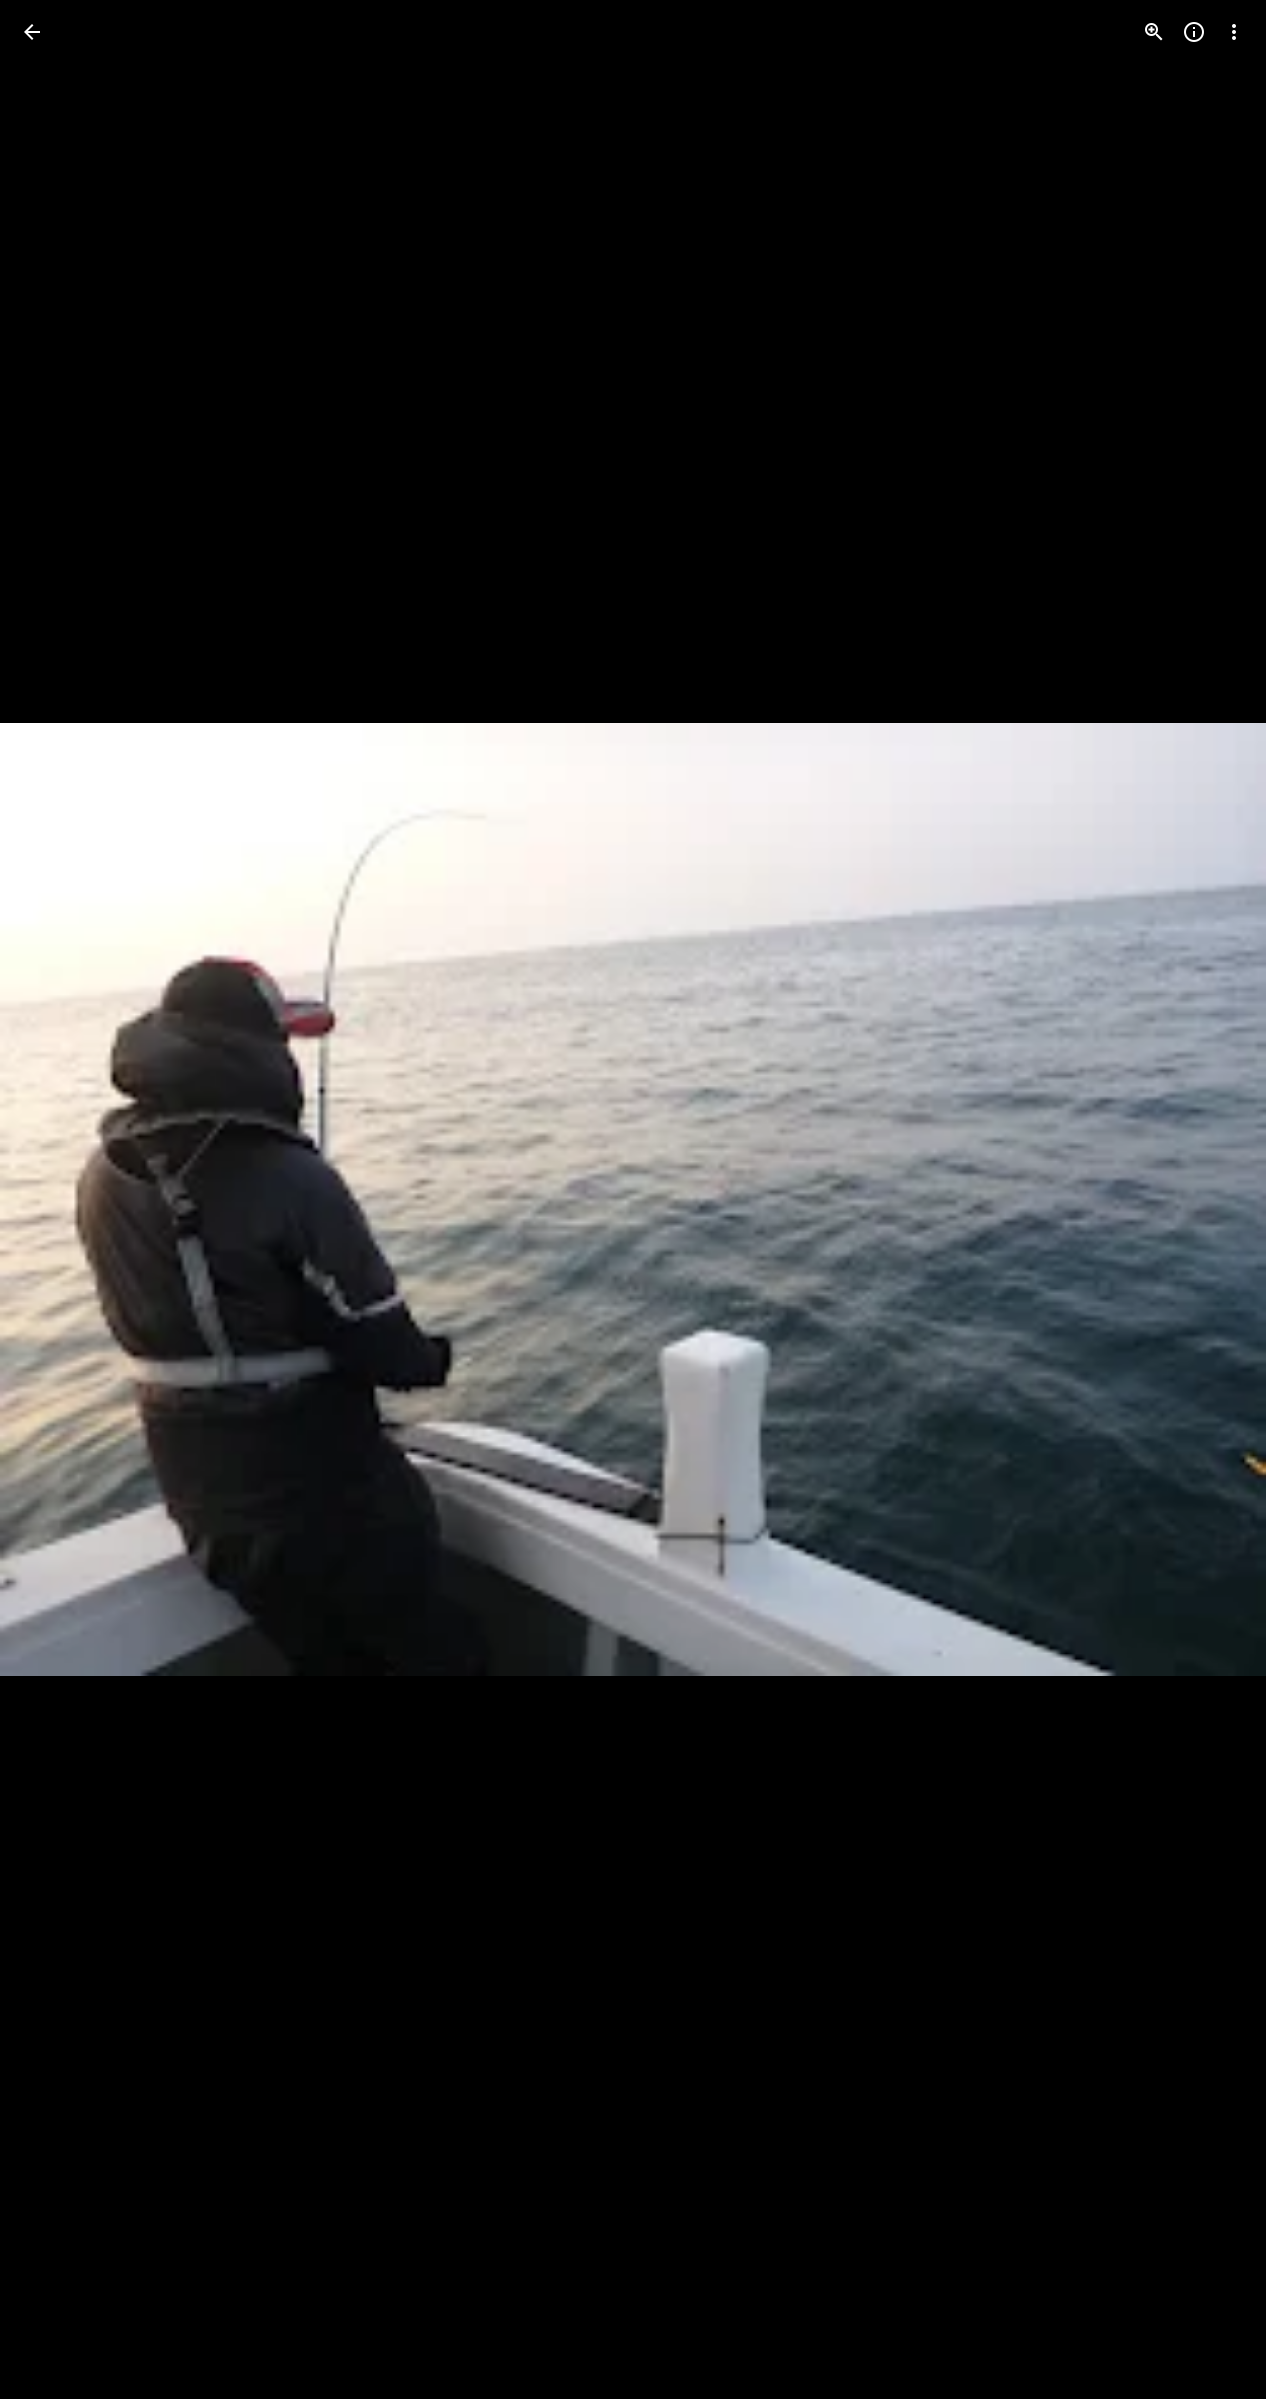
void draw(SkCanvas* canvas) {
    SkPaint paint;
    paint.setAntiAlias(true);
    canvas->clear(0xFF000000);
    canvas->drawImageRect(SkImages::DeferredFromEncodedData(SkData::MakeFromFileName("img1.png")), SkRect::MakeXYWH(24, 24, 16, 16), SkSamplingOptions());
    canvas->drawImageRect(SkImages::DeferredFromEncodedData(SkData::MakeFromFileName("img2.png")), SkRect::MakeXYWH(1145, 23, 18, 18), SkSamplingOptions());
    canvas->drawImageRect(SkImages::DeferredFromEncodedData(SkData::MakeFromFileName("img3.png")), SkRect::MakeXYWH(1184, 22, 20, 20), SkSamplingOptions());
    canvas->drawImageRect(SkImages::DeferredFromEncodedData(SkData::MakeFromFileName("img4.png")), SkRect::MakeXYWH(1232, 24, 4, 16), SkSamplingOptions());
    canvas->drawImageRect(SkImages::DeferredFromEncodedData(SkData::MakeFromFileName("img5.png")), SkRect::MakeXYWH(0, 723, 1266, 953), SkSamplingOptions());
}
